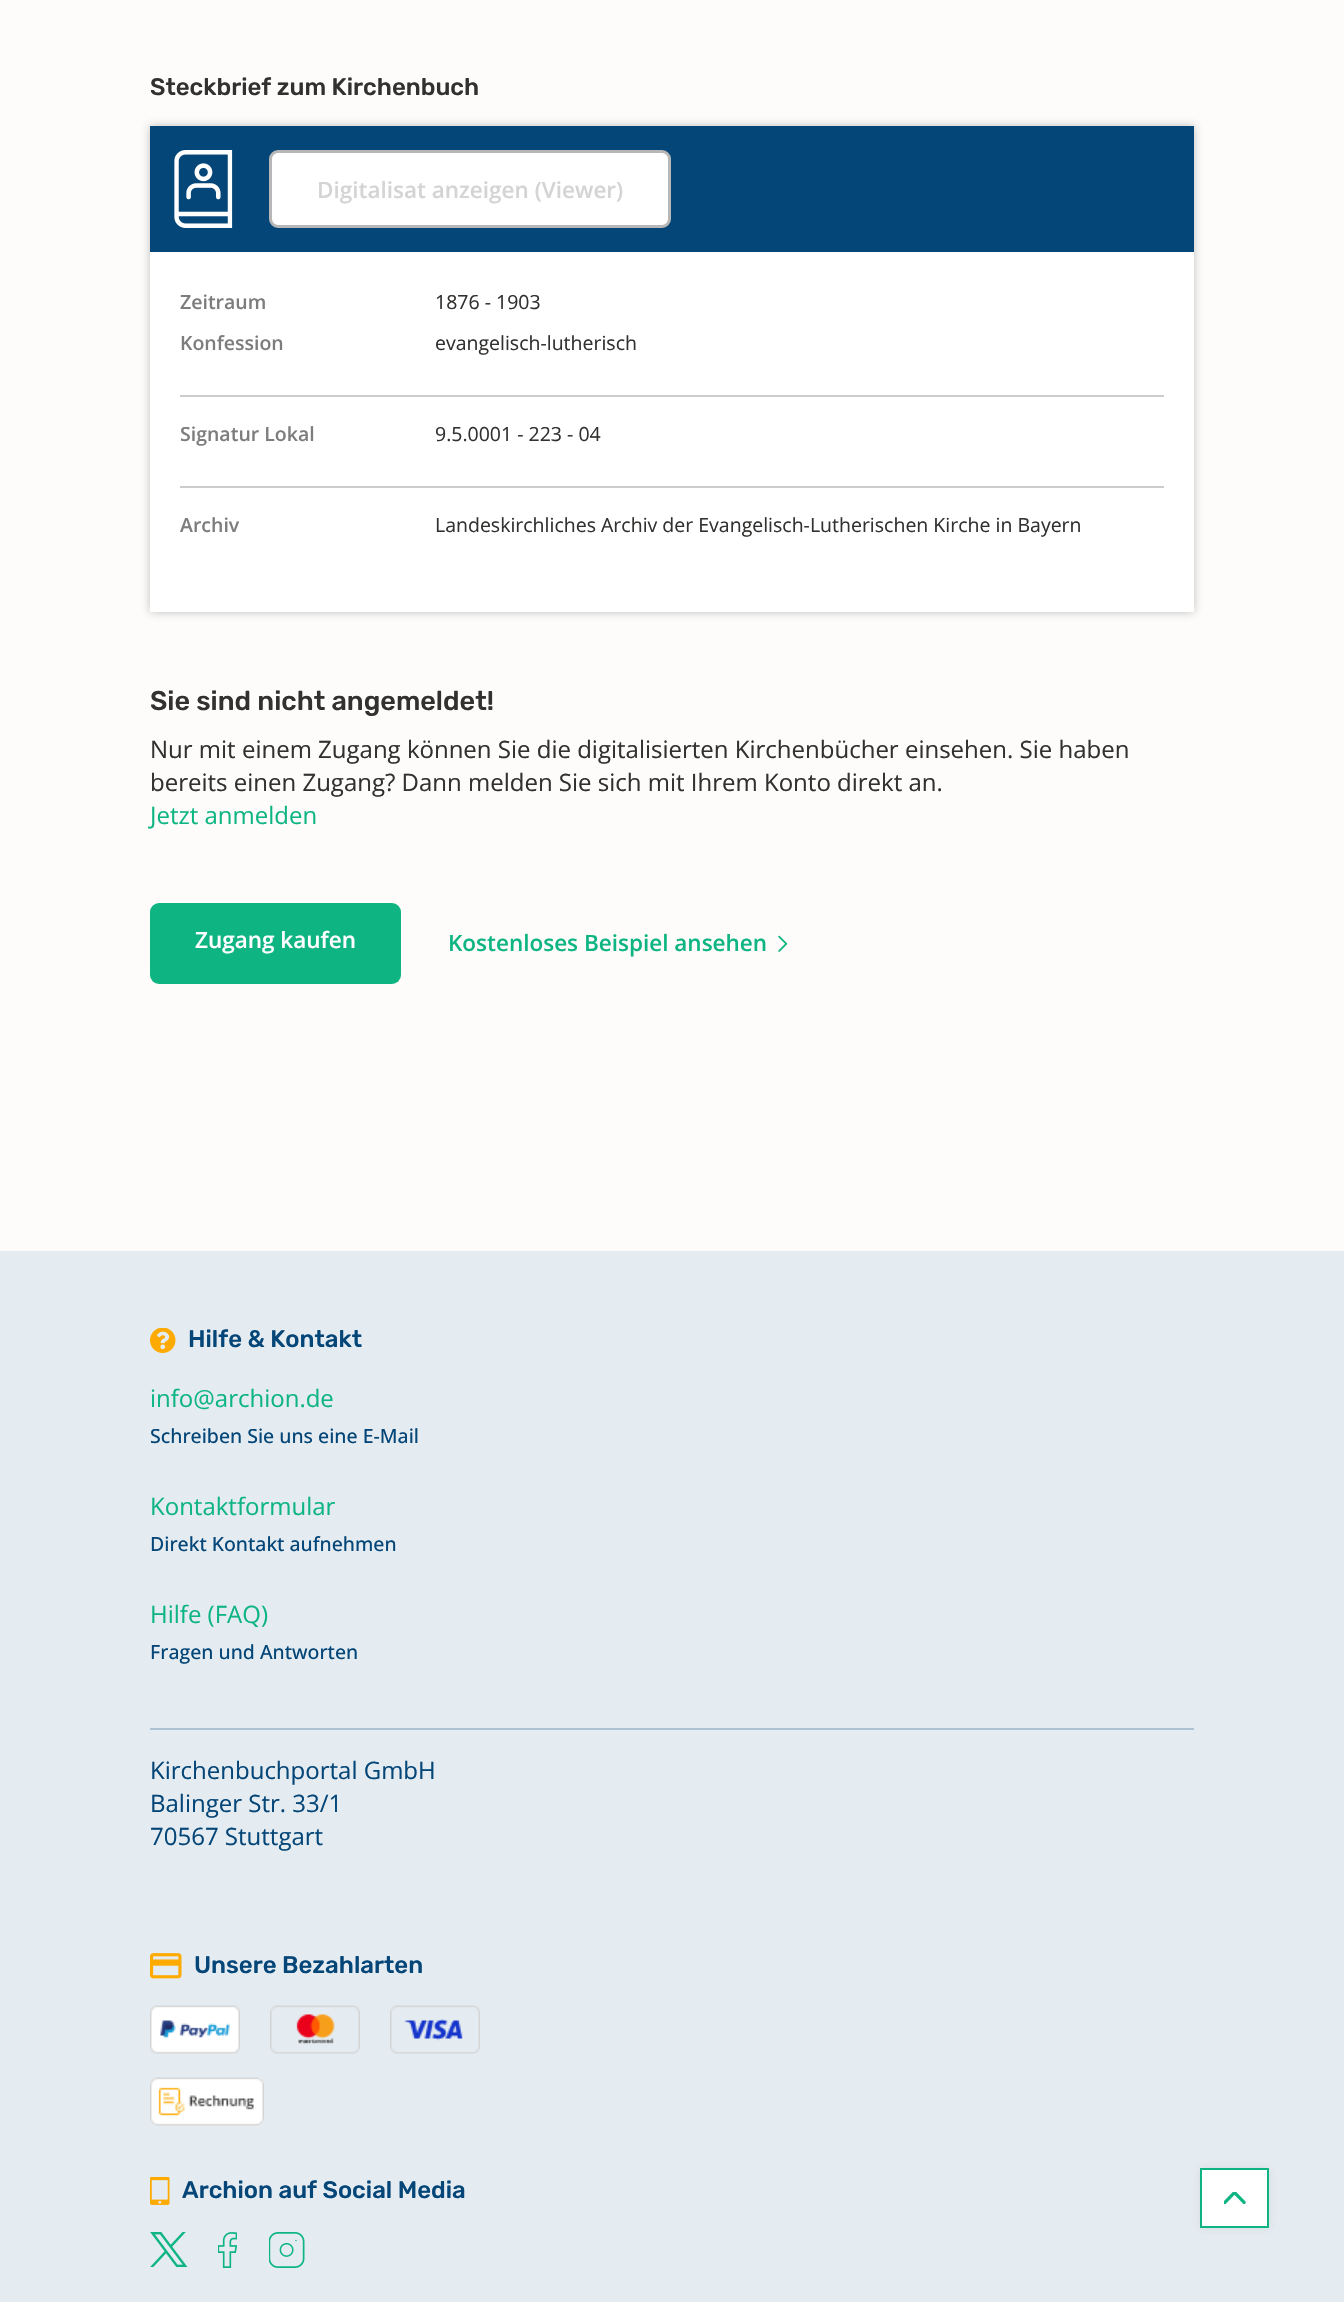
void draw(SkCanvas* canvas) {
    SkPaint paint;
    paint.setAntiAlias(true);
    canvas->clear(0xFFFDFCFB);
    SkFont font1(fontMgr->matchFamilyStyle("Rubik", SkFontStyle(300, SkFontStyle::kNormal_Width, SkFontStyle::kUpright_Slant)), 24);
    font1.setSubpixel(true);
    paint.setColor(0xFF333130);
    canvas->drawString("Steckbrief zum Kirchenbuch", 150, 95, font1, paint);
    paint.setColor(0x4D333130);
    paint.setMaskFilter(SkMaskFilter::MakeBlur(kNormal_SkBlurStyle, 4.5f));
    canvas->drawRect(SkRect::MakeXYWH(150, 126, 1044, 486), paint);
    paint.setMaskFilter(nullptr);
    paint.setColor(0xFFFFFFFF);
    canvas->drawRect(SkRect::MakeXYWH(150, 252, 1044, 360), paint);
    paint.setColor(0xFF054678);
    canvas->drawRect(SkRect::MakeXYWH(150, 126, 1044, 126), paint);
    canvas->drawImageRect(SkImages::DeferredFromEncodedData(SkData::MakeFromFileName("img1.png")), SkRect::MakeXYWH(174, 150, 59, 78), SkSamplingOptions());
    paint.setColor(0xFFFFFFFF);
    canvas->drawRoundRect(SkRect::MakeXYWH(270.5f, 151.5f, 399, 75), 7.5f, 7.5f, paint);
    paint.setStyle(SkPaint::kStroke_Style);
    paint.setStrokeWidth(3);
    paint.setColor(0xFFB7B7B7);
    canvas->drawRoundRect(SkRect::MakeXYWH(270.5f, 151.5f, 399, 75), 7.5f, 7.5f, paint);
    SkFont font2(fontMgr->matchFamilyStyle("Open Sans", SkFontStyle(600, SkFontStyle::kNormal_Width, SkFontStyle::kUpright_Slant)), 22.5f);
    font2.setSubpixel(true);
    paint.setStyle(SkPaint::kFill_Style);
    paint.setColor(0xFFD4D4D4);
    canvas->drawString("Digitalisat anzeigen (Viewer)", 317, 198, font2, paint);
    SkFont font3(fontMgr->matchFamilyStyle("Open Sans", SkFontStyle(600, SkFontStyle::kNormal_Width, SkFontStyle::kUpright_Slant)), 19.5f);
    font3.setSubpixel(true);
    paint.setColor(0xFF7D7D7D);
    canvas->drawString("Zeitraum", 180, 309, font3, paint);
    SkFont font4(fontMgr->matchFamilyStyle("Open Sans", SkFontStyle::Normal()), 19.5f);
    font4.setSubpixel(true);
    paint.setColor(0xFF333130);
    canvas->drawString("1876 - 1903", 435, 309, font4, paint);
    paint.setColor(0xFF7D7D7D);
    canvas->drawString("Konfession", 180, 350, font3, paint);
    paint.setColor(0xFF333130);
    canvas->drawString("evangelisch-lutherisch", 435, 350, font4, paint);
    paint.setColor(0xFFCCCCCB);
    canvas->drawRect(SkRect::MakeXYWH(180, 395, 984, 2), paint);
    paint.setColor(0xFF7D7D7D);
    canvas->drawString("Signatur Lokal", 180, 441, font3, paint);
    paint.setColor(0xFF333130);
    canvas->drawString("9.5.0001 - 223 - 04", 435, 441, font4, paint);
    paint.setColor(0xFFCCCCCB);
    canvas->drawRect(SkRect::MakeXYWH(180, 486, 984, 2), paint);
    paint.setColor(0xFF7D7D7D);
    canvas->drawString("Archiv", 180, 532, font3, paint);
    paint.setColor(0xFF333130);
    canvas->drawString("Landeskirchliches Archiv der Evangelisch-Lutherischen Kirche in Bayern", 435, 532, font4, paint);
    SkFont font5(fontMgr->matchFamilyStyle("Rubik", SkFontStyle(300, SkFontStyle::kNormal_Width, SkFontStyle::kUpright_Slant)), 27);
    font5.setSubpixel(true);
    canvas->drawString("Sie sind nicht angemeldet!", 150, 710, font5, paint);
    SkFont font6(fontMgr->matchFamilyStyle("Open Sans", SkFontStyle::Normal()), 24);
    font6.setSubpixel(true);
    canvas->drawString("Nur mit einem Zugang können Sie die digitalisierten Kirchenbücher einsehen. Sie haben", 150, 758, font6, paint);
    canvas->drawString("bereits einen Zugang? Dann melden Sie sich mit Ihrem Konto direkt an.", 150, 791, font6, paint);
    paint.setColor(0xFF0EB582);
    canvas->drawString("Jetzt anmelden", 150, 824, font6, paint);
    canvas->drawRoundRect(SkRect::MakeXYWH(150, 903, 251, 81), 9, 9, paint);
    paint.setColor(0xFFFFFFFF);
    canvas->drawString("Zugang kaufen", 195, 948, font2, paint);
    paint.setColor(0xFF0EB582);
    canvas->drawString("Kostenloses Beispiel ansehen", 448, 951, font2, paint);
    canvas->drawImageRect(SkImages::DeferredFromEncodedData(SkData::MakeFromFileName("img2.png")), SkRect::MakeXYWH(778, 935, 10, 17), SkSamplingOptions());
    paint.setColor(0xFFE5ECF1);
    canvas->drawRect(SkRect::MakeXYWH(0, 1251, 1344, 1051), paint);
    canvas->drawImageRect(SkImages::DeferredFromEncodedData(SkData::MakeFromFileName("img3.png")), SkRect::MakeXYWH(150, 1328, 26, 25), SkSamplingOptions());
    paint.setColor(0xFF054678);
    canvas->drawString("Hilfe & Kontakt", 188, 1347, font1, paint);
    paint.setColor(0xFF0EB582);
    canvas->drawString("info@archion.de", 150, 1407, font6, paint);
    SkFont font7(fontMgr->matchFamilyStyle("Open Sans", SkFontStyle(500, SkFontStyle::kNormal_Width, SkFontStyle::kUpright_Slant)), 19.5f);
    font7.setSubpixel(true);
    paint.setColor(0xFF054678);
    canvas->drawString("Schreiben Sie uns eine E-Mail", 150, 1443, font7, paint);
    paint.setColor(0xFF0EB582);
    canvas->drawString("Kontaktformular", 150, 1515, font6, paint);
    paint.setColor(0xFF054678);
    canvas->drawString("Direkt Kontakt aufnehmen", 150, 1551, font7, paint);
    paint.setColor(0xFF0EB582);
    canvas->drawString("Hilfe (FAQ)", 150, 1623, font6, paint);
    paint.setColor(0xFF054678);
    canvas->drawString("Fragen und Antworten", 150, 1659, font7, paint);
    paint.setColor(0xFFADC3D3);
    canvas->drawRect(SkRect::MakeXYWH(150, 1728, 1044, 2), paint);
    paint.setColor(0xFF054678);
    canvas->drawString("Kirchenbuchportal GmbH", 150, 1779, font6, paint);
    canvas->drawString("Balinger Str. 33/1", 150, 1812, font6, paint);
    canvas->drawString("70567 Stuttgart", 150, 1845, font6, paint);
    canvas->drawImageRect(SkImages::DeferredFromEncodedData(SkData::MakeFromFileName("img4.png")), SkRect::MakeXYWH(150, 1953, 32, 26), SkSamplingOptions());
    canvas->drawString("Unsere Bezahlarten", 194, 1973, font1, paint);
    canvas->drawImageRect(SkImages::DeferredFromEncodedData(SkData::MakeFromFileName("img5.png")), SkRect::MakeXYWH(150, 2005, 90, 49), SkSamplingOptions());
    canvas->drawImageRect(SkImages::DeferredFromEncodedData(SkData::MakeFromFileName("img6.png")), SkRect::MakeXYWH(270, 2005, 90, 49), SkSamplingOptions());
    canvas->drawImageRect(SkImages::DeferredFromEncodedData(SkData::MakeFromFileName("img7.png")), SkRect::MakeXYWH(390, 2005, 90, 49), SkSamplingOptions());
    canvas->drawImageRect(SkImages::DeferredFromEncodedData(SkData::MakeFromFileName("img8.png")), SkRect::MakeXYWH(150, 2077, 114, 49), SkSamplingOptions());
    canvas->drawImageRect(SkImages::DeferredFromEncodedData(SkData::MakeFromFileName("img9.png")), SkRect::MakeXYWH(150, 2177, 20, 28), SkSamplingOptions());
    canvas->drawString("Archion auf Social Media", 182, 2198, font1, paint);
    canvas->drawImageRect(SkImages::DeferredFromEncodedData(SkData::MakeFromFileName("img10.png")), SkRect::MakeXYWH(150, 2232, 38, 35), SkSamplingOptions());
    canvas->drawImageRect(SkImages::DeferredFromEncodedData(SkData::MakeFromFileName("img11.png")), SkRect::MakeXYWH(218, 2232, 19, 36), SkSamplingOptions());
    canvas->drawImageRect(SkImages::DeferredFromEncodedData(SkData::MakeFromFileName("img12.png")), SkRect::MakeXYWH(269, 2232, 36, 36), SkSamplingOptions());
    paint.setColor(0x1A333130);
    paint.setMaskFilter(SkMaskFilter::MakeBlur(kNormal_SkBlurStyle, 4.5f));
    canvas->drawRect(SkRect::MakeXYWH(1200, 2168, 69, 60), paint);
    paint.setMaskFilter(nullptr);
    paint.setColor(0xFFFFFFFF);
    canvas->drawRect(SkRect::MakeXYWH(1201, 2169, 67, 58), paint);
    paint.setStyle(SkPaint::kStroke_Style);
    paint.setStrokeWidth(2);
    paint.setColor(0xFF0EB582);
    canvas->drawRect(SkRect::MakeXYWH(1201, 2169, 67, 58), paint);
    canvas->drawImageRect(SkImages::DeferredFromEncodedData(SkData::MakeFromFileName("img13.png")), SkRect::MakeXYWH(1224, 2192, 22, 13), SkSamplingOptions());
}
